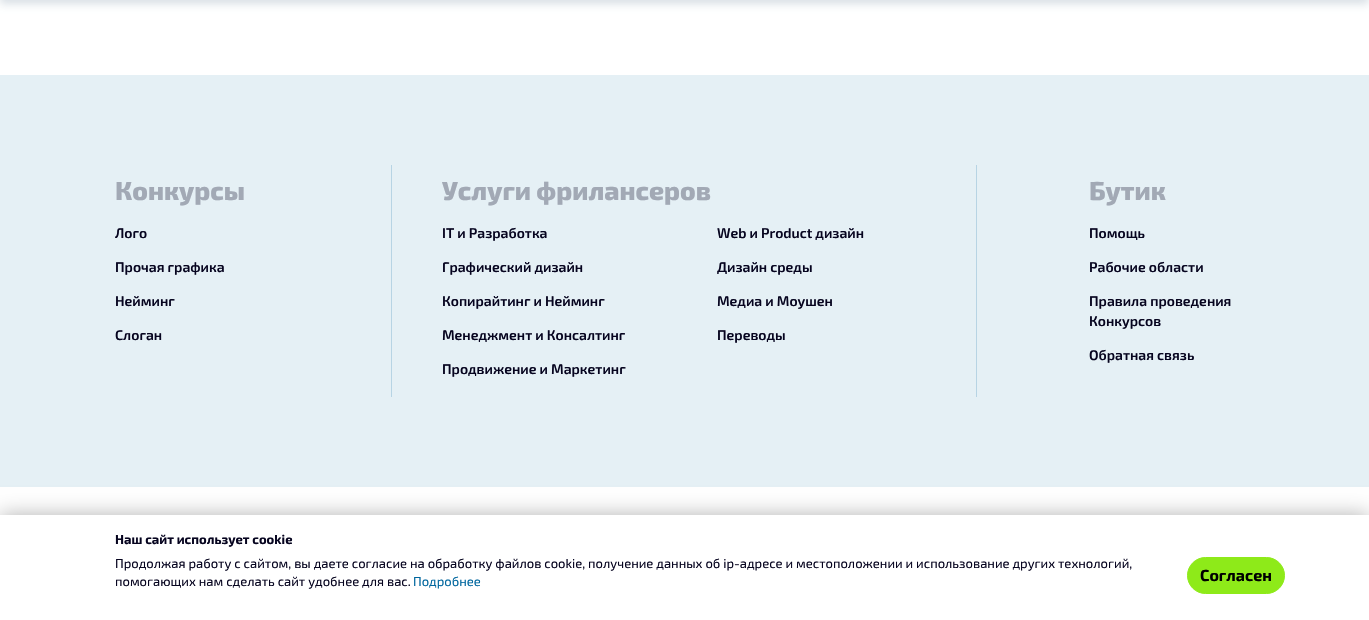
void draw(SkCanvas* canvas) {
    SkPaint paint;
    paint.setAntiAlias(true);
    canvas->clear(0xFFFFFFFF);
    paint.setColor(0x26002550);
    paint.setMaskFilter(SkMaskFilter::MakeBlur(kNormal_SkBlurStyle, 4));
    canvas->drawRect(SkRect::MakeXYWH(0, -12, 1369, 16), paint);
    paint.setMaskFilter(nullptr);
    paint.setColor(0xFFE5F0F5);
    canvas->drawRect(SkRect::MakeXYWH(0, 75, 1369, 412), paint);
    paint.setColor(0xFFB7D4E4);
    canvas->drawRect(SkRect::MakeXYWH(391, 165, 1, 232), paint);
    SkFont font1(fontMgr->matchFamilyStyle("Exo 2", SkFontStyle(800, SkFontStyle::kNormal_Width, SkFontStyle::kUpright_Slant)), 26);
    font1.setSubpixel(true);
    paint.setColor(0xFFA2A9B5);
    canvas->drawString("Конкурсы", 115, 200, font1, paint);
    SkFont font2(fontMgr->matchFamilyStyle("Exo 2", SkFontStyle(600, SkFontStyle::kNormal_Width, SkFontStyle::kUpright_Slant)), 14);
    font2.setSubpixel(true);
    paint.setColor(0xFF06041F);
    canvas->drawString("Лого", 115, 238, font2, paint);
    canvas->drawString("Прочая графика", 115, 272, font2, paint);
    canvas->drawString("Нейминг", 115, 306, font2, paint);
    canvas->drawString("Слоган", 115, 340, font2, paint);
    paint.setColor(0xFFB7D4E4);
    canvas->drawRect(SkRect::MakeXYWH(976, 165, 1, 232), paint);
    paint.setColor(0xFFA2A9B5);
    canvas->drawString("Услуги фрилансеров", 442, 200, font1, paint);
    paint.setColor(0xFF06041F);
    canvas->drawString("IT и Разработка", 442, 238, font2, paint);
    canvas->drawString("Web и Product дизайн", 717, 238, font2, paint);
    canvas->drawString("Графический дизайн", 442, 272, font2, paint);
    canvas->drawString("Дизайн среды", 717, 272, font2, paint);
    canvas->drawString("Копирайтинг и Нейминг", 442, 306, font2, paint);
    canvas->drawString("Медиа и Моушен", 717, 306, font2, paint);
    canvas->drawString("Менеджмент и Консалтинг", 442, 340, font2, paint);
    canvas->drawString("Переводы", 717, 340, font2, paint);
    canvas->drawString("Продвижение и Маркетинг", 442, 374, font2, paint);
    paint.setColor(0xFFA2A9B5);
    canvas->drawString("Бутик", 1089, 200, font1, paint);
    paint.setColor(0xFF06041F);
    canvas->drawString("Помощь", 1089, 238, font2, paint);
    canvas->drawString("Рабочие области", 1089, 272, font2, paint);
    canvas->drawString("Правила проведения", 1089, 306, font2, paint);
    canvas->drawString("Конкурсов", 1089, 326, font2, paint);
    canvas->drawString("Обратная связь", 1089, 360, font2, paint);
    paint.setColor(0x4D000000);
    paint.setMaskFilter(SkMaskFilter::MakeBlur(kNormal_SkBlurStyle, 10));
    canvas->drawRect(SkRect::MakeXYWH(0, 515, 1369, 105), paint);
    paint.setMaskFilter(nullptr);
    paint.setColor(0xFFFFFFFF);
    canvas->drawRect(SkRect::MakeXYWH(0, 515, 1369, 105), paint);
    SkFont font3(fontMgr->matchFamilyStyle("Exo 2", SkFontStyle::Bold()), 13);
    font3.setSubpixel(true);
    paint.setColor(0xFF06041F);
    canvas->drawString("Наш сайт использует cookie", 115, 544, font3, paint);
    SkFont font4(fontMgr->matchFamilyStyle("Exo 2", SkFontStyle::Normal()), 13);
    font4.setSubpixel(true);
    canvas->drawString("Продолжая работу с сайтом, вы даете согласие на обработку файлов cookie, получение данных об ip-адресе и местоположении и использование других технологий,", 115, 568, font4, paint);
    canvas->drawString("помогающих нам сделать сайт удобнее для вас.", 115, 586, font4, paint);
    paint.setColor(0xFF00669E);
    canvas->drawString("Подробнее", 413, 586, font4, paint);
    paint.setColor(0xFF8EEA19);
    canvas->drawRoundRect(SkRect::MakeXYWH(1187.5f, 557.5f, 97, 36), 18, 18, paint);
    paint.setStyle(SkPaint::kStroke_Style);
    paint.setStrokeWidth(1);
    canvas->drawRoundRect(SkRect::MakeXYWH(1187.5f, 557.5f, 97, 36), 18, 18, paint);
    SkFont font5(fontMgr->matchFamilyStyle("Exo 2", SkFontStyle::Bold()), 16);
    font5.setSubpixel(true);
    paint.setStyle(SkPaint::kFill_Style);
    paint.setColor(0xFF000000);
    canvas->drawString("Согласен", 1200, 581, font5, paint);
}
